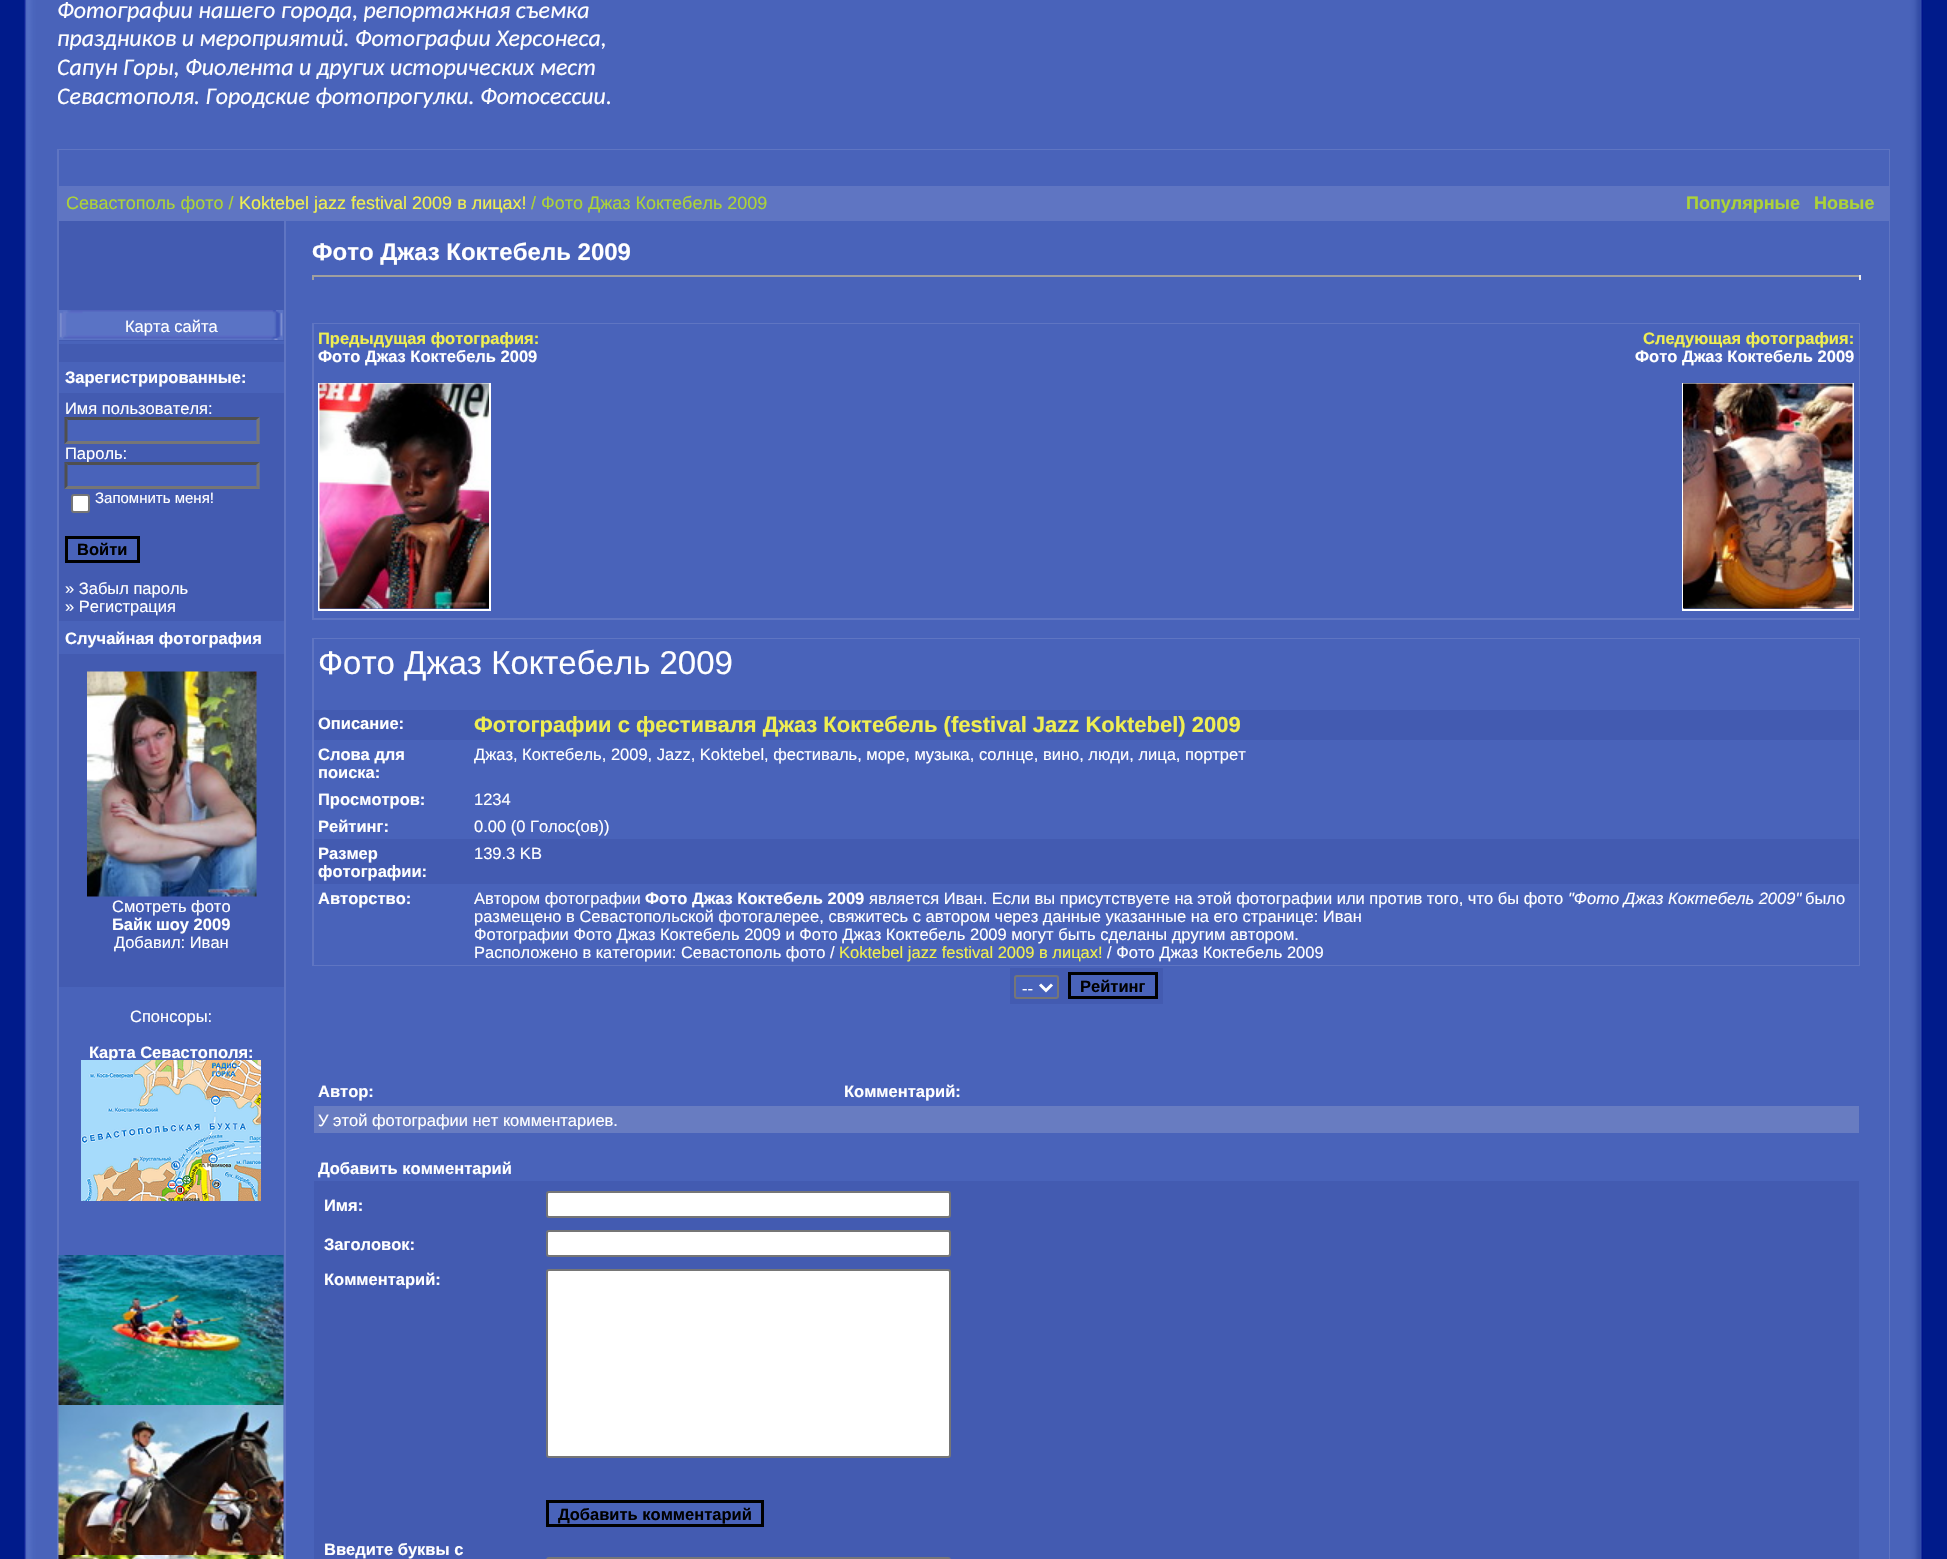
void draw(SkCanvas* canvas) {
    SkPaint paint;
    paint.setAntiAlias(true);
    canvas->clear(0xFF001B8B);
    canvas->drawImageRect(SkImages::DeferredFromEncodedData(SkData::MakeFromFileName("img1.png")), SkRect::MakeXYWH(24, 0, 33, 1559), SkSamplingOptions());
    paint.setColor(0xFF4963BA);
    canvas->drawRect(SkRect::MakeXYWH(57, 0, 1833, 149), paint);
    SkFont font1(fontMgr->matchFamilyStyle("Carlito", SkFontStyle::Italic()), 23.9f);
    font1.setSubpixel(true);
    paint.setColor(0xFFFFFFFF);
    canvas->drawString("Фотографии нашего города, репортажная съемка", 57, 18, font1, paint);
    canvas->drawString("праздников и мероприятий. Фотографии Херсонеса,", 57, 46, font1, paint);
    canvas->drawString("Сапун Горы, Фиолента и других исторических мест", 57, 75, font1, paint);
    canvas->drawString("Севастополя. Городские фотопрогулки. Фотосессии.", 57, 104, font1, paint);
    paint.setColor(0xFF5F75C2);
    canvas->drawRect(SkRect::MakeXYWH(57, 149, 1833, 1410), paint);
    paint.setColor(0xFF4963BA);
    canvas->drawRect(SkRect::MakeXYWH(59, 150, 1830, 1409), paint);
    paint.setColor(0xFF5F75C2);
    canvas->drawRect(SkRect::MakeXYWH(59, 186, 1830, 35), paint);
    SkFont font2(fontMgr->matchFamilyStyle("Liberation Sans", SkFontStyle::Normal()), 18);
    font2.setSubpixel(true);
    paint.setColor(0xFFADD338);
    canvas->drawString("Севастополь фото /", 66, 209, font2, paint);
    paint.setColor(0xFFEFEE52);
    canvas->drawString("Koktebel jazz festival 2009 в лицах!", 239, 209, font2, paint);
    paint.setColor(0xFFADD338);
    canvas->drawString("/ Фото Джаз Коктебель 2009", 531, 209, font2, paint);
    SkFont font3(fontMgr->matchFamilyStyle("Liberation Sans", SkFontStyle::Bold()), 18);
    font3.setSubpixel(true);
    canvas->drawString("Популярные", 1686, 209, font3, paint);
    canvas->drawString("Новые", 1814, 209, font3, paint);
    paint.setColor(0xFF435BB1);
    canvas->drawRect(SkRect::MakeXYWH(59, 221, 225, 141), paint);
    canvas->drawImageRect(SkImages::DeferredFromEncodedData(SkData::MakeFromFileName("img2.png")), SkRect::MakeXYWH(59, 310, 225, 30), SkSamplingOptions());
    SkFont font4(fontMgr->matchFamilyStyle("Liberation Sans", SkFontStyle::Normal()), 16.5f);
    font4.setSubpixel(true);
    paint.setColor(0xFFFFFFFF);
    canvas->drawString("Карта сайта", 125, 332, font4, paint);
    paint.setColor(0xFF4963BA);
    canvas->drawRect(SkRect::MakeXYWH(59, 341, 225, 3), paint);
    SkFont font5(fontMgr->matchFamilyStyle("Liberation Sans", SkFontStyle::Bold()), 16.5f);
    font5.setSubpixel(true);
    paint.setColor(0xFFFFFFFF);
    canvas->drawString("Зарегистрированные:", 65, 383, font5, paint);
    paint.setColor(0xFF435BB1);
    canvas->drawRect(SkRect::MakeXYWH(59, 393, 225, 228), paint);
    paint.setColor(0xFFFFFFFF);
    canvas->drawString("Имя пользователя:", 65, 414, font4, paint);
    paint.setColor(0xFF4963BA);
    canvas->drawRect(SkRect::MakeXYWH(65, 417, 195, 27), paint);
    paint.setColor(0xFF4F4F4F);
    canvas->drawPath(SkPathBuilder().moveTo(64, 417).lineTo(260, 417).lineTo(256, 420).lineTo(68, 420).close().detach(), paint);
    paint.setColor(0xFF767676);
    canvas->drawPath(SkPathBuilder().moveTo(259.5f, 417).lineTo(259.5f, 444).lineTo(256.5f, 441).lineTo(256.5f, 420).close().detach(), paint);
    canvas->drawPath(SkPathBuilder().moveTo(260, 444).lineTo(64, 444).lineTo(68, 441).lineTo(256, 441).close().detach(), paint);
    paint.setColor(0xFF4F4F4F);
    canvas->drawPath(SkPathBuilder().moveTo(64.5f, 444).lineTo(64.5f, 417).lineTo(67.5f, 420).lineTo(67.5f, 441).close().detach(), paint);
    paint.setColor(0xFFFFFFFF);
    canvas->drawString("Пароль:", 65, 459, font4, paint);
    paint.setColor(0xFF4963BA);
    canvas->drawRect(SkRect::MakeXYWH(65, 462, 195, 27), paint);
    paint.setColor(0xFF4F4F4F);
    canvas->drawPath(SkPathBuilder().moveTo(64, 462).lineTo(260, 462).lineTo(256, 465).lineTo(68, 465).close().detach(), paint);
    paint.setColor(0xFF767676);
    canvas->drawPath(SkPathBuilder().moveTo(259.5f, 462).lineTo(259.5f, 489).lineTo(256.5f, 486).lineTo(256.5f, 465).close().detach(), paint);
    canvas->drawPath(SkPathBuilder().moveTo(260, 489).lineTo(64, 489).lineTo(68, 486).lineTo(256, 486).close().detach(), paint);
    paint.setColor(0xFF4F4F4F);
    canvas->drawPath(SkPathBuilder().moveTo(64.5f, 489).lineTo(64.5f, 462).lineTo(67.5f, 465).lineTo(67.5f, 486).close().detach(), paint);
    paint.setColor(0xFFFFFFFF);
    canvas->drawRoundRect(SkRect::MakeXYWH(72, 495, 17, 17), 2, 2, paint);
    paint.setStyle(SkPaint::kStroke_Style);
    paint.setStrokeWidth(2);
    paint.setColor(0xFF767676);
    canvas->drawRoundRect(SkRect::MakeXYWH(72, 495, 17, 17), 2, 2, paint);
    SkFont font6(fontMgr->matchFamilyStyle("Liberation Sans", SkFontStyle::Normal()), 15);
    font6.setSubpixel(true);
    paint.setStyle(SkPaint::kFill_Style);
    paint.setColor(0xFFFFFFFF);
    canvas->drawString("Запомнить меня!", 95, 503, font6, paint);
    paint.setColor(0xFF4963BA);
    canvas->drawRect(SkRect::MakeXYWH(66.5f, 537.5f, 72, 24), paint);
    paint.setStyle(SkPaint::kStroke_Style);
    paint.setStrokeWidth(3);
    paint.setColor(0xFF000000);
    canvas->drawRect(SkRect::MakeXYWH(66.5f, 537.5f, 72, 24), paint);
    paint.setStyle(SkPaint::kFill_Style);
    canvas->drawString("Войти", 77, 555, font5, paint);
    paint.setColor(0xFFFFFFFF);
    canvas->drawString("» Забыл пароль", 65, 594, font4, paint);
    canvas->drawString("» Регистрация", 65, 612, font4, paint);
    canvas->drawString("Случайная фотография", 65, 644, font5, paint);
    paint.setColor(0xFF435BB1);
    canvas->drawRect(SkRect::MakeXYWH(59, 654, 225, 333), paint);
    canvas->drawImageRect(SkImages::DeferredFromEncodedData(SkData::MakeFromFileName("img3.png")), SkRect::MakeXYWH(87, 671, 170, 226), SkSamplingOptions());
    paint.setColor(0xFFFFFFFF);
    canvas->drawString("Смотреть фото", 112, 912, font4, paint);
    canvas->drawString("Байк шоу 2009", 112, 930, font5, paint);
    canvas->drawString("Добавил: Иван", 114, 948, font4, paint);
    canvas->drawString("Спонсоры:", 130, 1022, font4, paint);
    canvas->drawString("Карта Севастополя:", 89, 1058, font5, paint);
    canvas->drawImageRect(SkImages::DeferredFromEncodedData(SkData::MakeFromFileName("img4.png")), SkRect::MakeXYWH(81, 1060, 180, 141), SkSamplingOptions());
    canvas->drawImageRect(SkImages::DeferredFromEncodedData(SkData::MakeFromFileName("img5.png")), SkRect::MakeXYWH(58, 1255, 226, 150), SkSamplingOptions());
    canvas->drawImageRect(SkImages::DeferredFromEncodedData(SkData::MakeFromFileName("img6.png")), SkRect::MakeXYWH(58, 1405, 226, 150), SkSamplingOptions());
    canvas->drawImageRect(SkImages::DeferredFromEncodedData(SkData::MakeFromFileName("img7.png")), SkRect::MakeXYWH(58, 1555, 226, 4), SkSamplingOptions());
    paint.setColor(0xFF5F75C2);
    canvas->drawRect(SkRect::MakeXYWH(284, 221, 2, 1338), paint);
    SkFont font7(fontMgr->matchFamilyStyle("Liberation Sans", SkFontStyle::Bold()), 24);
    font7.setSubpixel(true);
    paint.setColor(0xFFFFFFFF);
    canvas->drawString("Фото Джаз Коктебель 2009", 312, 260, font7, paint);
    paint.setColor(0xFF9F9F9F);
    canvas->drawRect(SkRect::MakeXYWH(312, 275, 1548, 2), paint);
    paint.setColor(0xFFEEEEEE);
    canvas->drawRect(SkRect::MakeXYWH(1859, 275, 2, 5), paint);
    paint.setColor(0xFF9F9F9F);
    canvas->drawRect(SkRect::MakeXYWH(312, 275, 2, 5), paint);
    paint.setColor(0xFF5F75C2);
    canvas->drawRect(SkRect::MakeXYWH(312, 323, 1548, 297), paint);
    paint.setColor(0xFF4963BA);
    canvas->drawRect(SkRect::MakeXYWH(314, 324, 1545, 294), paint);
    paint.setColor(0xFFEFEE52);
    canvas->drawString("Предыдущая фотография:", 318, 344, font5, paint);
    paint.setColor(0xFFFFFFFF);
    canvas->drawString("Фото Джаз Коктебель 2009", 318, 362, font5, paint);
    paint.setStyle(SkPaint::kStroke_Style);
    paint.setStrokeWidth(2);
    canvas->drawRect(SkRect::MakeXYWH(319, 384, 171, 226), paint);
    canvas->drawImageRect(SkImages::DeferredFromEncodedData(SkData::MakeFromFileName("img8.png")), SkRect::MakeXYWH(319, 383, 170, 226), SkSamplingOptions());
    paint.setStyle(SkPaint::kFill_Style);
    paint.setColor(0xFFEFEE52);
    canvas->drawString("Следующая фотография:", 1643, 344, font5, paint);
    paint.setColor(0xFFFFFFFF);
    canvas->drawString("Фото Джаз Коктебель 2009", 1635, 362, font5, paint);
    paint.setStyle(SkPaint::kStroke_Style);
    canvas->drawRect(SkRect::MakeXYWH(1683, 384, 170, 226), paint);
    canvas->drawImageRect(SkImages::DeferredFromEncodedData(SkData::MakeFromFileName("img9.png")), SkRect::MakeXYWH(1683, 383, 170, 226), SkSamplingOptions());
    paint.setStyle(SkPaint::kFill_Style);
    paint.setColor(0xFF5F75C2);
    canvas->drawRect(SkRect::MakeXYWH(312, 638, 1548, 328), paint);
    paint.setColor(0xFF4963BA);
    canvas->drawRect(SkRect::MakeXYWH(314, 639, 1545, 71), paint);
    SkFont font8(fontMgr->matchFamilyStyle("Liberation Sans", SkFontStyle::Normal()), 33);
    font8.setSubpixel(true);
    paint.setColor(0xFFFFFFFF);
    canvas->drawString("Фото Джаз Коктебель 2009", 318, 674, font8, paint);
    paint.setColor(0xFF435BB1);
    canvas->drawRect(SkRect::MakeXYWH(314, 710, 1545, 30), paint);
    paint.setColor(0xFFFFFFFF);
    canvas->drawString("Описание:", 318, 729, font5, paint);
    SkFont font9(fontMgr->matchFamilyStyle("Liberation Sans", SkFontStyle::Bold()), 22);
    font9.setSubpixel(true);
    paint.setColor(0xFFEFEE52);
    canvas->drawString("Фотографии с фестиваля Джаз Коктебель (festival Jazz Koktebel) 2009", 474, 732, font9, paint);
    paint.setColor(0xFF4963BA);
    canvas->drawRect(SkRect::MakeXYWH(314, 740, 1545, 45), paint);
    paint.setColor(0xFFFFFFFF);
    canvas->drawString("Слова для", 318, 760, font5, paint);
    canvas->drawString("поиска:", 318, 778, font5, paint);
    canvas->drawString("Джаз, Коктебель, 2009, Jazz, Koktebel, фестиваль, море, музыка, солнце, вино, люди, лица, портрет", 474, 760, font4, paint);
    paint.setColor(0xFF4963BA);
    canvas->drawRect(SkRect::MakeXYWH(314, 785, 1545, 27), paint);
    paint.setColor(0xFFFFFFFF);
    canvas->drawString("Просмотров:", 318, 805, font5, paint);
    canvas->drawString("1234", 474, 805, font4, paint);
    paint.setColor(0xFF4963BA);
    canvas->drawRect(SkRect::MakeXYWH(314, 812, 1545, 27), paint);
    paint.setColor(0xFFFFFFFF);
    canvas->drawString("Рейтинг:", 318, 832, font5, paint);
    canvas->drawString("0.00 (0 Голос(ов))", 474, 832, font4, paint);
    paint.setColor(0xFF435BB1);
    canvas->drawRect(SkRect::MakeXYWH(314, 839, 1545, 45), paint);
    paint.setColor(0xFFFFFFFF);
    canvas->drawString("Размер", 318, 859, font5, paint);
    canvas->drawString("фотографии:", 318, 877, font5, paint);
    canvas->drawString("139.3 KB", 474, 859, font4, paint);
    paint.setColor(0xFF4963BA);
    canvas->drawRect(SkRect::MakeXYWH(314, 884, 1545, 81), paint);
    paint.setColor(0xFFFFFFFF);
    canvas->drawString("Авторство:", 318, 904, font5, paint);
    canvas->drawString("Автором фотографии", 474, 904, font4, paint);
    canvas->drawString("Фото Джаз Коктебель 2009", 645, 904, font5, paint);
    canvas->drawString("является Иван. Если вы присутствуете на этой фотографии или против того, что бы фото", 869, 904, font4, paint);
    SkFont font10(fontMgr->matchFamilyStyle("Liberation Sans", SkFontStyle::Italic()), 16.5f);
    font10.setSubpixel(true);
    canvas->drawString("\"Фото Джаз Коктебель 2009\"", 1568, 904, font10, paint);
    canvas->drawString("было", 1805, 904, font4, paint);
    canvas->drawString("размещено в Севастопольской фотогалерее, свяжитесь с автором через данные указанные на его странице: Иван", 474, 922, font4, paint);
    canvas->drawString("Фотографии Фото Джаз Коктебель 2009 и Фото Джаз Коктебель 2009 могут быть сделаны другим автором.", 474, 940, font4, paint);
    canvas->drawString("Расположено в категории: Севастополь фото /", 474, 958, font4, paint);
    paint.setColor(0xFFEFEE52);
    canvas->drawString("Koktebel jazz festival 2009 в лицах!", 839, 958, font4, paint);
    paint.setColor(0xFFFFFFFF);
    canvas->drawString("/ Фото Джаз Коктебель 2009", 1107, 958, font4, paint);
    paint.setColor(0xFF435BB1);
    canvas->drawRect(SkRect::MakeXYWH(1010, 968, 153, 36), paint);
    paint.setColor(0xFF4963BA);
    canvas->drawRoundRect(SkRect::MakeXYWH(1015, 976, 43, 22), 2, 2, paint);
    paint.setStyle(SkPaint::kStroke_Style);
    paint.setColor(0xFF767676);
    canvas->drawRoundRect(SkRect::MakeXYWH(1015, 976, 43, 22), 2, 2, paint);
    paint.setStrokeWidth(3);
    paint.setColor(0xFFFFFFFF);
    canvas->drawPath(SkPathBuilder().moveTo(1040, 984.5f).lineTo(1046, 990.5f).lineTo(1052, 984.5f).detach(), paint);
    paint.setStyle(SkPaint::kFill_Style);
    canvas->drawString("--", 1022, 994, font4, paint);
    paint.setColor(0xFF4963BA);
    canvas->drawRect(SkRect::MakeXYWH(1069.5f, 973.5f, 87, 24), paint);
    paint.setStyle(SkPaint::kStroke_Style);
    paint.setColor(0xFF000000);
    canvas->drawRect(SkRect::MakeXYWH(1069.5f, 973.5f, 87, 24), paint);
    paint.setStyle(SkPaint::kFill_Style);
    canvas->drawString("Рейтинг", 1080, 992, font5, paint);
    paint.setColor(0xFFFFFFFF);
    canvas->drawString("Автор:", 318, 1097, font5, paint);
    canvas->drawString("Комментарий:", 844, 1097, font5, paint);
    paint.setColor(0xFF687CC1);
    canvas->drawRect(SkRect::MakeXYWH(314, 1106, 1545, 27), paint);
    paint.setColor(0xFFFFFFFF);
    canvas->drawString("У этой фотографии нет комментариев.", 318, 1126, font4, paint);
    canvas->drawString("Добавить комментарий", 318, 1174, font5, paint);
    paint.setColor(0xFF435BB1);
    canvas->drawRect(SkRect::MakeXYWH(314, 1181, 1545, 378), paint);
    paint.setColor(0xFFFFFFFF);
    canvas->drawString("Имя:", 324, 1211, font5, paint);
    canvas->drawRoundRect(SkRect::MakeXYWH(547, 1192, 403, 25), 2, 2, paint);
    paint.setStyle(SkPaint::kStroke_Style);
    paint.setStrokeWidth(2);
    paint.setColor(0xFF767676);
    canvas->drawRoundRect(SkRect::MakeXYWH(547, 1192, 403, 25), 2, 2, paint);
    paint.setStyle(SkPaint::kFill_Style);
    paint.setColor(0xFFFFFFFF);
    canvas->drawString("Заголовок:", 324, 1250, font5, paint);
    canvas->drawRoundRect(SkRect::MakeXYWH(547, 1231, 403, 25), 2, 2, paint);
    paint.setStyle(SkPaint::kStroke_Style);
    paint.setColor(0xFF767676);
    canvas->drawRoundRect(SkRect::MakeXYWH(547, 1231, 403, 25), 2, 2, paint);
    paint.setStyle(SkPaint::kFill_Style);
    paint.setColor(0xFFFFFFFF);
    canvas->drawString("Комментарий:", 324, 1285, font5, paint);
    canvas->drawRoundRect(SkRect::MakeXYWH(547, 1270, 403, 187), 2, 2, paint);
    paint.setStyle(SkPaint::kStroke_Style);
    paint.setColor(0xFF767676);
    canvas->drawRoundRect(SkRect::MakeXYWH(547, 1270, 403, 187), 2, 2, paint);
    paint.setStyle(SkPaint::kFill_Style);
    paint.setColor(0xFF4963BA);
    canvas->drawRect(SkRect::MakeXYWH(547.5f, 1501.5f, 215, 24), paint);
    paint.setStyle(SkPaint::kStroke_Style);
    paint.setStrokeWidth(3);
    paint.setColor(0xFF000000);
    canvas->drawRect(SkRect::MakeXYWH(547.5f, 1501.5f, 215, 24), paint);
    paint.setStyle(SkPaint::kFill_Style);
    canvas->drawString("Добавить комментарий", 558, 1520, font5, paint);
    paint.setColor(0xFFFFFFFF);
    canvas->drawString("Введите буквы с", 324, 1555, font5, paint);
    paint.setStyle(SkPaint::kStroke_Style);
    paint.setStrokeWidth(2);
    paint.setColor(0xFF767676);
    canvas->drawRoundRect(SkRect::MakeXYWH(547, 1558, 403, 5), 2, 2, paint);
    canvas->drawImageRect(SkImages::DeferredFromEncodedData(SkData::MakeFromFileName("img10.png")), SkRect::MakeXYWH(1890, 0, 33, 1559), SkSamplingOptions());
}
